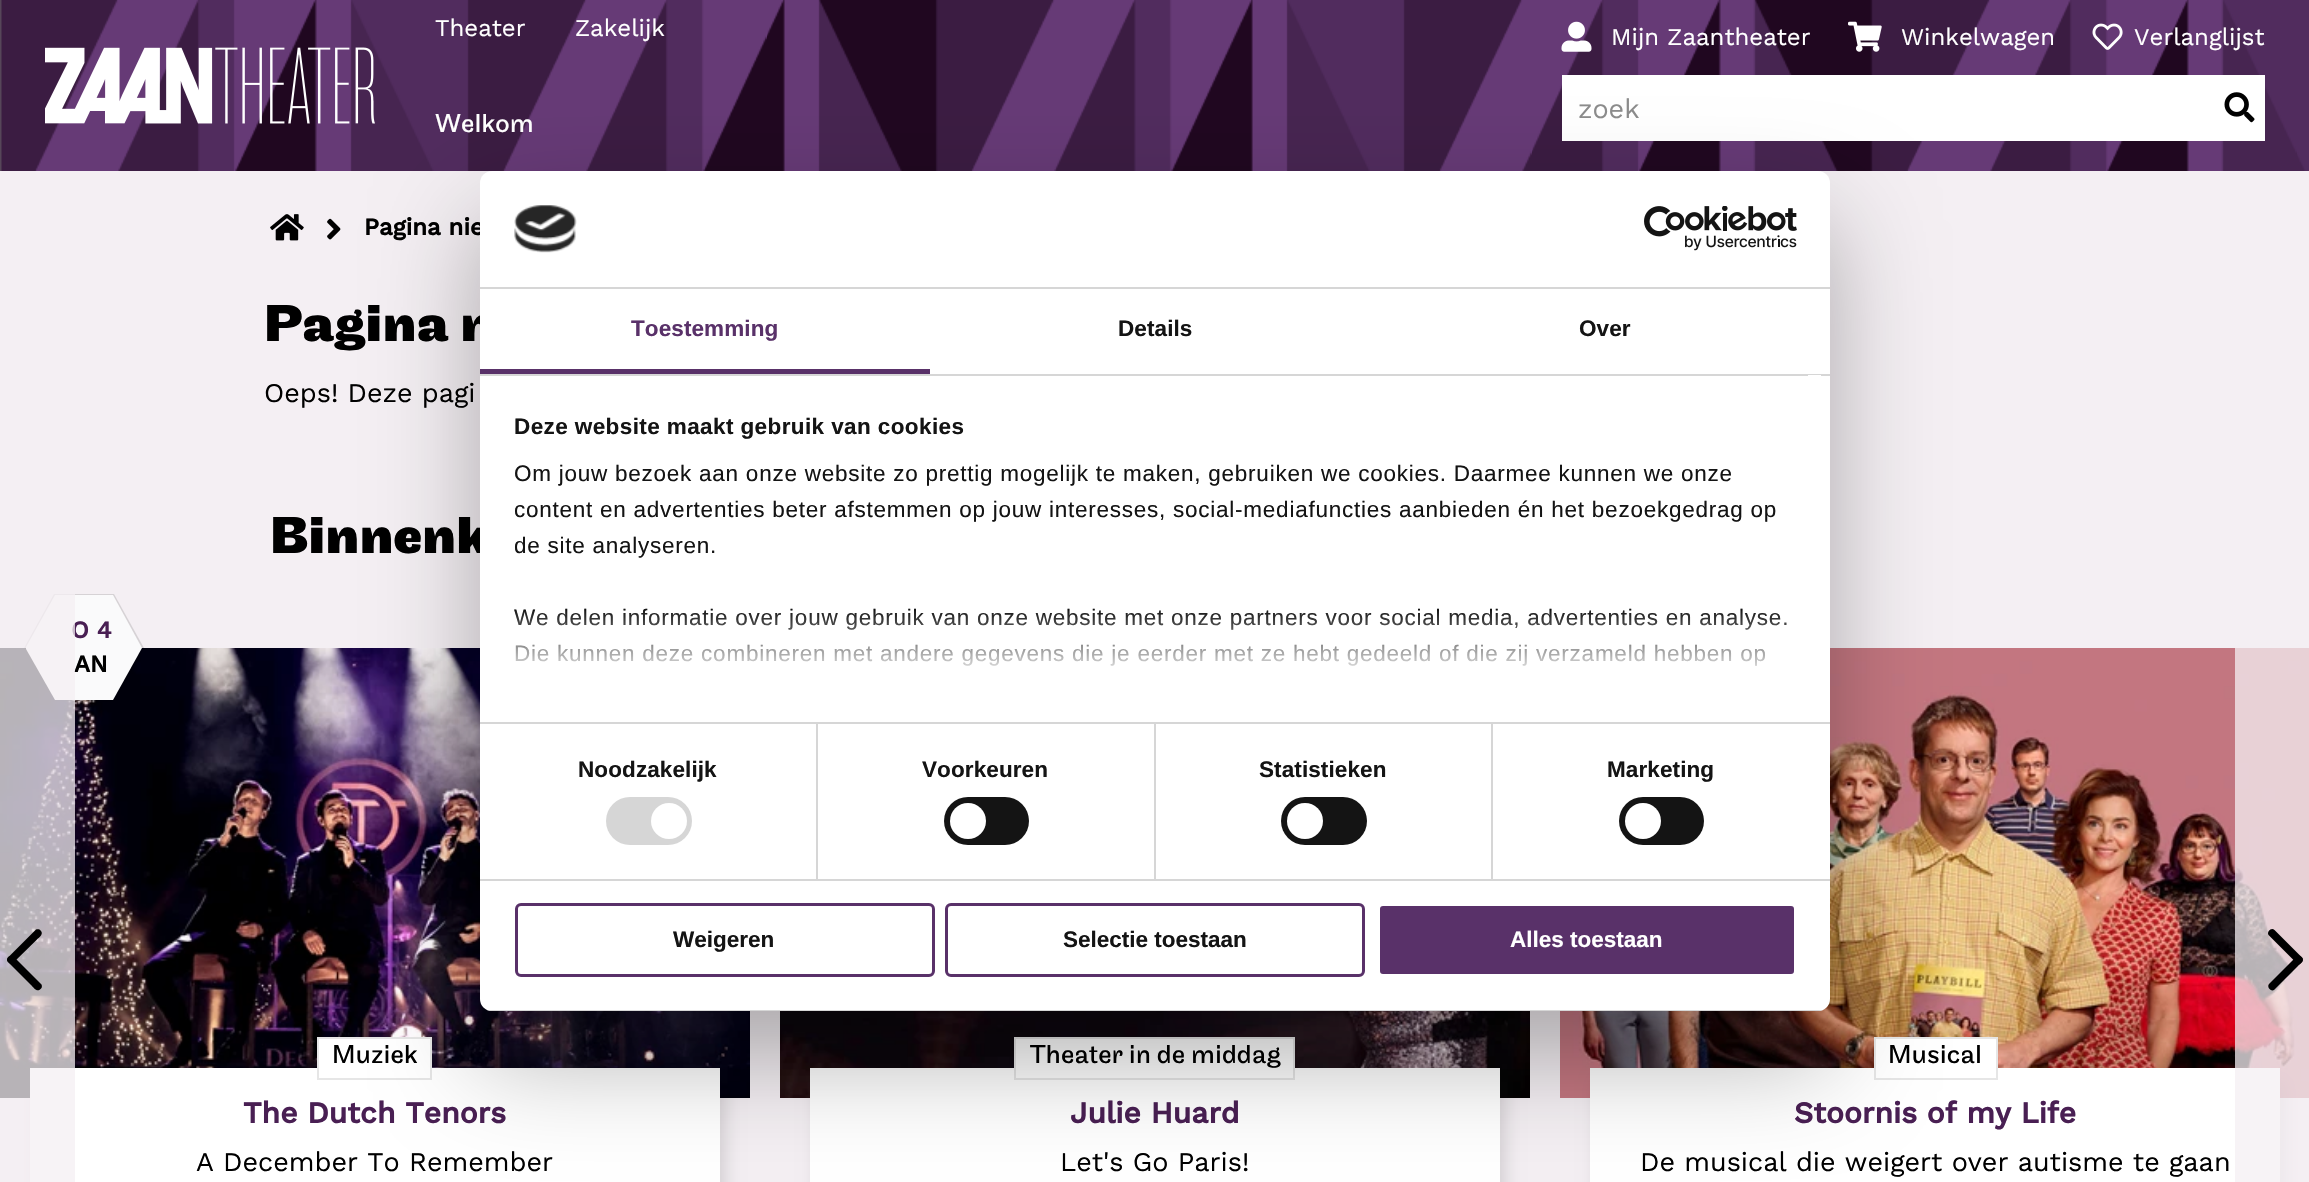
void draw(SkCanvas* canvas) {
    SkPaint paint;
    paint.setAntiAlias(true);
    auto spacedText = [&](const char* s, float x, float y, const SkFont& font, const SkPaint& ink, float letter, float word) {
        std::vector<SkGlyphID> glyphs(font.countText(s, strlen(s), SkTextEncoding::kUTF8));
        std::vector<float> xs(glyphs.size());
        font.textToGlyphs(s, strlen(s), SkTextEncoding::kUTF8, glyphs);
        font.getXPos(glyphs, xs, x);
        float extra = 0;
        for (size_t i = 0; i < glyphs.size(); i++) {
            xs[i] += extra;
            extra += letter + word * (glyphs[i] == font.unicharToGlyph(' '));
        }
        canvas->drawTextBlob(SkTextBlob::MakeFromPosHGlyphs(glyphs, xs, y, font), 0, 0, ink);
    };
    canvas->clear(0xFFF4EFF3);
    canvas->drawImageRect(SkImages::DeferredFromEncodedData(SkData::MakeFromFileName("img1.png")), SkRect::MakeXYWH(0, 0, 2309, 171), SkSamplingOptions());
    canvas->drawImageRect(SkImages::DeferredFromEncodedData(SkData::MakeFromFileName("img2.png")), SkRect::MakeXYWH(45, 47, 330, 77), SkSamplingOptions());
    SkFont font1(fontMgr->matchFamilyStyle("Work Sans", SkFontStyle::Normal()), 24);
    font1.setSubpixel(true);
    paint.setColor(0xFFFFFFFF);
    canvas->drawString("Theater", 435, 36, font1, paint);
    canvas->drawString("Zakelijk", 575, 36, font1, paint);
    SkFont font2(fontMgr->matchFamilyStyle("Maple", SkFontStyle::Normal()), 27);
    font2.setSubpixel(true);
    canvas->drawString("Welkom", 435, 132, font2, paint);
    canvas->drawImageRect(SkImages::DeferredFromEncodedData(SkData::MakeFromFileName("img3.png")), SkRect::MakeXYWH(1561, 21, 31, 31), SkSamplingOptions());
    canvas->drawString("Mijn Zaantheater", 1611, 45, font1, paint);
    canvas->drawImageRect(SkImages::DeferredFromEncodedData(SkData::MakeFromFileName("img4.png")), SkRect::MakeXYWH(1848, 21, 34, 31), SkSamplingOptions());
    canvas->drawString("Winkelwagen", 1901, 45, font1, paint);
    canvas->drawImageRect(SkImages::DeferredFromEncodedData(SkData::MakeFromFileName("img5.png")), SkRect::MakeXYWH(2092, 23, 31, 27), SkSamplingOptions());
    canvas->drawString("Verlanglijst", 2134, 45, font1, paint);
    canvas->drawRect(SkRect::MakeXYWH(1562, 75, 703, 66), paint);
    SkFont font3(fontMgr->matchFamilyStyle("Work Sans", SkFontStyle::Normal()), 27);
    font3.setSubpixel(true);
    paint.setColor(0xFF8C8C8C);
    canvas->drawString("zoek", 1578, 118, font3, paint);
    canvas->drawImageRect(SkImages::DeferredFromEncodedData(SkData::MakeFromFileName("img6.png")), SkRect::MakeXYWH(2224, 92, 31, 31), SkSamplingOptions());
    canvas->drawImageRect(SkImages::DeferredFromEncodedData(SkData::MakeFromFileName("img7.png")), SkRect::MakeXYWH(270, 214, 34, 27), SkSamplingOptions());
    canvas->drawImageRect(SkImages::DeferredFromEncodedData(SkData::MakeFromFileName("img8.png")), SkRect::MakeXYWH(327, 218, 14, 22), SkSamplingOptions());
    SkFont font4(fontMgr->matchFamilyStyle("Work Sans", SkFontStyle::Bold()), 24);
    font4.setSubpixel(true);
    paint.setColor(0xFF000000);
    canvas->drawString("Pagina nie", 364, 235, font4, paint);
    SkFont font5(fontMgr->matchFamilyStyle("Maple", SkFontStyle::Bold()), 54);
    font5.setSubpixel(true);
    canvas->drawString("Pagina n", 264, 341, font5, paint);
    canvas->drawString("Oeps! Deze pagi", 264, 402, font3, paint);
    canvas->drawString("Binnenk", 270, 553, font5, paint);
    canvas->drawImageRect(SkImages::DeferredFromEncodedData(SkData::MakeFromFileName("img9.png")), SkRect::MakeXYWH(0, 648, 750, 450), SkSamplingOptions());
    paint.setColor(0x1F000000);
    canvas->drawPath(SkPathBuilder().moveTo(54, 594).lineTo(24, 648).lineTo(54, 702).lineTo(114, 702).lineTo(144, 648).lineTo(114, 594).close().detach(), paint);
    paint.setColor(0xFFFAFAFB);
    canvas->drawPath(SkPathBuilder().moveTo(55, 595).lineTo(113, 595).lineTo(142, 648).lineTo(113, 700).lineTo(55, 700).lineTo(26, 649).lineTo(26, 647).close().detach(), paint);
    paint.setColor(0xFF491F53);
    canvas->drawString("O 4", 71, 638, font4, paint);
    paint.setColor(0xFF000000);
    canvas->drawString("AN", 74, 672, font4, paint);
    paint.setColor(0x1F000000);
    paint.setMaskFilter(SkMaskFilter::MakeBlur(kNormal_SkBlurStyle, 7.5f));
    canvas->drawRect(SkRect::MakeXYWH(36, 1080, 690, 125), paint);
    paint.setMaskFilter(nullptr);
    paint.setColor(0xFFFFFFFF);
    canvas->drawRect(SkRect::MakeXYWH(30, 1068, 690, 114), paint);
    paint.setColor(0xBFF4EFF3);
    canvas->drawRect(SkRect::MakeXYWH(0, 594, 75, 588), paint);
    paint.setColor(0xFF000000);
    canvas->drawPath(SkPathBuilder().moveTo(8, 957.5f).lineTo(36, 929.5f).cubicTo(37, 929, 38.5f, 929, 39.5f, 929.5f).cubicTo(45, 933.5f, 39.5f, 937, 36.5f, 940).lineTo(13, 963).cubicTo(10, 965.5f, 5.5f, 960.5f, 8, 957.5f).close().detach(), paint);
    canvas->drawPath(SkPathBuilder().moveTo(13.5f, 956.5f).lineTo(41.5f, 984.5f).cubicTo(42, 985.5f, 42, 987, 41.5f, 988).cubicTo(37.5f, 993.5f, 34, 988, 31, 985).lineTo(7.5f, 961.5f).cubicTo(5.5f, 958, 10.5f, 954, 13.5f, 956.5f).close().detach(), paint);
    paint.setColor(0xFFFFFFFF);
    canvas->drawRect(SkRect::MakeXYWH(319, 1039, 111, 29), paint);
    paint.setStyle(SkPaint::kStroke_Style);
    paint.setStrokeWidth(2);
    paint.setColor(0xFFE6E6E6);
    canvas->drawRect(SkRect::MakeXYWH(318, 1038, 113, 41), paint);
    paint.setStyle(SkPaint::kFill_Style);
    paint.setColor(0xFF000000);
    canvas->drawString("Muziek", 332, 1063, font2, paint);
    SkFont font6(fontMgr->matchFamilyStyle("Work Sans", SkFontStyle::Bold()), 30);
    font6.setSubpixel(true);
    paint.setColor(0xFF491F53);
    canvas->drawString("The Dutch Tenors", 243, 1123, font6, paint);
    paint.setColor(0xFF000000);
    canvas->drawString("A December To Remember", 196, 1171, font3, paint);
    canvas->drawImageRect(SkImages::DeferredFromEncodedData(SkData::MakeFromFileName("img10.png")), SkRect::MakeXYWH(780, 1011, 750, 87), SkSamplingOptions());
    paint.setColor(0x1F000000);
    paint.setMaskFilter(SkMaskFilter::MakeBlur(kNormal_SkBlurStyle, 7.5f));
    canvas->drawRect(SkRect::MakeXYWH(816, 1080, 690, 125), paint);
    paint.setMaskFilter(nullptr);
    paint.setColor(0xFFFFFFFF);
    canvas->drawRect(SkRect::MakeXYWH(810, 1068, 690, 114), paint);
    canvas->drawRect(SkRect::MakeXYWH(1016, 1039, 277, 29), paint);
    paint.setStyle(SkPaint::kStroke_Style);
    paint.setColor(0xFFE6E6E6);
    canvas->drawRect(SkRect::MakeXYWH(1015, 1038, 279, 41), paint);
    paint.setStyle(SkPaint::kFill_Style);
    paint.setColor(0xFF000000);
    canvas->drawString("Theater in de middag", 1030, 1063, font2, paint);
    paint.setColor(0xFF491F53);
    canvas->drawString("Julie Huard", 1070, 1123, font6, paint);
    paint.setColor(0xFF000000);
    canvas->drawString("Let's Go Paris!", 1060, 1171, font3, paint);
    canvas->drawImageRect(SkImages::DeferredFromEncodedData(SkData::MakeFromFileName("img11.png")), SkRect::MakeXYWH(1560, 648, 749, 450), SkSamplingOptions());
    paint.setColor(0x1F000000);
    paint.setMaskFilter(SkMaskFilter::MakeBlur(kNormal_SkBlurStyle, 7.5f));
    canvas->drawRect(SkRect::MakeXYWH(1596, 1080, 690, 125), paint);
    paint.setMaskFilter(nullptr);
    paint.setColor(0xFFFFFFFF);
    canvas->drawRect(SkRect::MakeXYWH(1590, 1068, 690, 114), paint);
    canvas->drawRect(SkRect::MakeXYWH(1876, 1039, 120, 29), paint);
    paint.setStyle(SkPaint::kStroke_Style);
    paint.setColor(0xFFE6E6E6);
    canvas->drawRect(SkRect::MakeXYWH(1875, 1038, 122, 41), paint);
    paint.setStyle(SkPaint::kFill_Style);
    paint.setColor(0xFF000000);
    canvas->drawString("Musical", 1888, 1063, font2, paint);
    paint.setColor(0xFF491F53);
    canvas->drawString("Stoornis of my Life", 1794, 1123, font6, paint);
    paint.setColor(0xFF000000);
    canvas->drawString("De musical die weigert over autisme te gaan", 1640, 1171, font3, paint);
    paint.setColor(0xBFF4EFF3);
    canvas->drawRect(SkRect::MakeXYWH(2235, 648, 74, 534), paint);
    paint.setColor(0xFF000000);
    canvas->drawPath(SkPathBuilder().moveTo(2274.5f, 930).lineTo(2302.5f, 958).cubicTo(2303, 959, 2303, 960.5f, 2302.5f, 961.5f).cubicTo(2298.5f, 967, 2295, 961.5f, 2292, 958.5f).lineTo(2268.5f, 935).cubicTo(2266.5f, 931.5f, 2271.5f, 927, 2274.5f, 930).close().detach(), paint);
    canvas->drawPath(SkPathBuilder().moveTo(2269, 984).lineTo(2297, 956).cubicTo(2298, 955.5f, 2299.5f, 955.5f, 2300.5f, 956).cubicTo(2306, 960, 2300.5f, 963.5f, 2297.5f, 966.5f).lineTo(2274, 990).cubicTo(2271, 992, 2266.5f, 987, 2269, 984).close().detach(), paint);
    paint.setColor(0x4D000000);
    paint.setMaskFilter(SkMaskFilter::MakeBlur(kNormal_SkBlurStyle, 51));
    canvas->drawRoundRect(SkRect::MakeXYWH(480, 219, 1350, 840), 12, 12, paint);
    paint.setMaskFilter(nullptr);
    paint.setColor(0xFFFFFFFF);
    canvas->drawRoundRect(SkRect::MakeXYWH(480, 171, 1350, 840), 12, 12, paint);
    paint.setColor(0xFFD6D6D6);
    canvas->drawRect(SkRect::MakeXYWH(480, 287, 1350, 2), paint);
    canvas->drawImageRect(SkImages::DeferredFromEncodedData(SkData::MakeFromFileName("img12.png")), SkRect::MakeXYWH(514, 205, 63, 48), SkSamplingOptions());
    canvas->drawImageRect(SkImages::DeferredFromEncodedData(SkData::MakeFromFileName("img13.png")), SkRect::MakeXYWH(1644, 206, 153, 45), SkSamplingOptions());
    canvas->drawRect(SkRect::MakeXYWH(480, 374, 1350, 2), paint);
    paint.setColor(0xFF593169);
    canvas->drawRect(SkRect::MakeXYWH(480, 369, 450, 5), paint);
    SkFont font7(fontMgr->matchFamilyStyle("Liberation Sans", SkFontStyle::Bold()), 22.5f);
    font7.setSubpixel(true);
    spacedText("Toestemming", 631, 336, font7, paint, 0.1f, 0);
    paint.setColor(0xFF141414);
    spacedText("Details", 1118, 336, font7, paint, 0.1f, 0);
    spacedText("Over", 1579, 336, font7, paint, 0.1f, 0);
    paint.setColor(0xFFD6D6D6);
    canvas->drawRect(SkRect::MakeXYWH(816, 723, 2, 156), paint);
    canvas->drawRect(SkRect::MakeXYWH(1154, 723, 2, 156), paint);
    canvas->drawRect(SkRect::MakeXYWH(1491, 723, 2, 156), paint);
    canvas->drawRect(SkRect::MakeXYWH(480, 722, 1350, 2), paint);
    paint.setColor(0xFFFFFFFF);
    canvas->drawRect(SkRect::MakeXYWH(1808, 375, 13, 1), paint);
    paint.setColor(0xFF141414);
    spacedText("Deze website maakt gebruik van cookies", 514, 434, font7, paint, 0.4f, 0);
    SkFont font8(fontMgr->matchFamilyStyle("Liberation Sans", SkFontStyle::Normal()), 22.5f);
    font8.setSubpixel(true);
    spacedText("Om jouw bezoek aan onze website zo prettig mogelijk te maken, gebruiken we cookies. Daarmee kunnen we onze", 514, 481, font8, paint, 0.75f, 0);
    spacedText("content en advertenties beter afstemmen op jouw interesses, social-mediafuncties aanbieden én het bezoekgedrag op", 514, 517, font8, paint, 0.75f, 0);
    spacedText("de site analyseren.", 514, 553, font8, paint, 0.75f, 0);
    spacedText("We delen informatie over jouw gebruik van onze website met onze partners voor social media, advertenties en analyse.", 514, 625, font8, paint, 0.75f, 0);
    spacedText("Die kunnen deze combineren met andere gegevens die je eerder met ze hebt gedeeld of die zij verzameld hebben op", 514, 661, font8, paint, 0.75f, 0);
    {
        const SkColor colors[] = {0xFFFFFFFF, 0xCCFFFFFF, 0x00FFFFFF};
        const float stops[] = {0, 0.5f, 1};
        const SkPoint ends[] = {{1140, 721}, {1140, 609}};
        paint.setShader(SkGradientShader::MakeLinear(ends, colors, stops, 3, SkTileMode::kClamp));
        paint.setAlpha(255);
    }
    canvas->drawRect(SkRect::MakeXYWH(514, 611, 1273, 55), paint);
    paint.setShader(nullptr);
    paint.setColor(0xFFD6D6D6);
    canvas->drawRect(SkRect::MakeXYWH(480, 879, 1350, 2), paint);
    paint.setColor(0xFF141414);
    spacedText("Noodzakelijk", 578, 777, font7, paint, 0.1f, 0);
    paint.setColor(0xFFD6D6D6);
    canvas->drawRoundRect(SkRect::MakeXYWH(606, 797, 86, 48), 24, 24, paint);
    paint.setColor(0xFFFFFFFF);
    canvas->drawCircle(669, 821, 18, paint);
    paint.setColor(0xFF141414);
    spacedText("Voorkeuren", 922, 777, font7, paint, 0.1f, 0);
    canvas->drawRoundRect(SkRect::MakeXYWH(944, 797, 85, 48), 24, 24, paint);
    paint.setColor(0xFFFFFFFF);
    canvas->drawCircle(968, 821, 18, paint);
    paint.setColor(0xFF141414);
    spacedText("Statistieken", 1259, 777, font7, paint, 0.1f, 0);
    canvas->drawRoundRect(SkRect::MakeXYWH(1281, 797, 86, 48), 24, 24, paint);
    paint.setColor(0xFFFFFFFF);
    canvas->drawCircle(1305, 821, 18, paint);
    paint.setColor(0xFF141414);
    spacedText("Marketing", 1607, 777, font7, paint, 0.1f, 0);
    canvas->drawRoundRect(SkRect::MakeXYWH(1619, 797, 85, 48), 24, 24, paint);
    paint.setColor(0xFFFFFFFF);
    canvas->drawCircle(1643, 821, 18, paint);
    canvas->save();
    canvas->clipPath(SkPathBuilder().moveTo(492, 171).lineTo(1818, 171).cubicTo(1824.5f, 171, 1830, 176.5f, 1830, 183).lineTo(1830, 999).cubicTo(1830, 1005.5f, 1824.5f, 1011, 1818, 1011).lineTo(492, 1011).cubicTo(485.5f, 1011, 480, 1005.5f, 480, 999).lineTo(480, 183).cubicTo(480, 176.5f, 485.5f, 171, 492, 171).close().detach(), true);
    paint.setColor(0xFFD6D6D6);
    canvas->drawRect(SkRect::MakeXYWH(480, 1010, 1350, 1), paint);
    canvas->restore();
    paint.setStyle(SkPaint::kStroke_Style);
    paint.setStrokeWidth(3);
    paint.setColor(0xFF593169);
    canvas->drawRoundRect(SkRect::MakeXYWH(516.5f, 904.5f, 417, 71), 4.5f, 4.5f, paint);
    paint.setStyle(SkPaint::kFill_Style);
    paint.setColor(0xFF141414);
    canvas->drawString("Weigeren", 673, 947, font7, paint);
    paint.setStyle(SkPaint::kStroke_Style);
    paint.setColor(0xFF593169);
    canvas->drawRoundRect(SkRect::MakeXYWH(946.5f, 904.5f, 417, 71), 4.5f, 4.5f, paint);
    paint.setStyle(SkPaint::kFill_Style);
    paint.setColor(0xFF141414);
    canvas->drawString("Selectie toestaan", 1063, 947, font7, paint);
    paint.setColor(0xFF593169);
    canvas->drawRoundRect(SkRect::MakeXYWH(1378.5f, 904.5f, 417, 71), 4.5f, 4.5f, paint);
    paint.setStyle(SkPaint::kStroke_Style);
    paint.setColor(0xFFFFFFFF);
    canvas->drawRoundRect(SkRect::MakeXYWH(1378.5f, 904.5f, 417, 71), 4.5f, 4.5f, paint);
    paint.setStyle(SkPaint::kFill_Style);
    canvas->drawString("Alles toestaan", 1510, 947, font7, paint);
}
